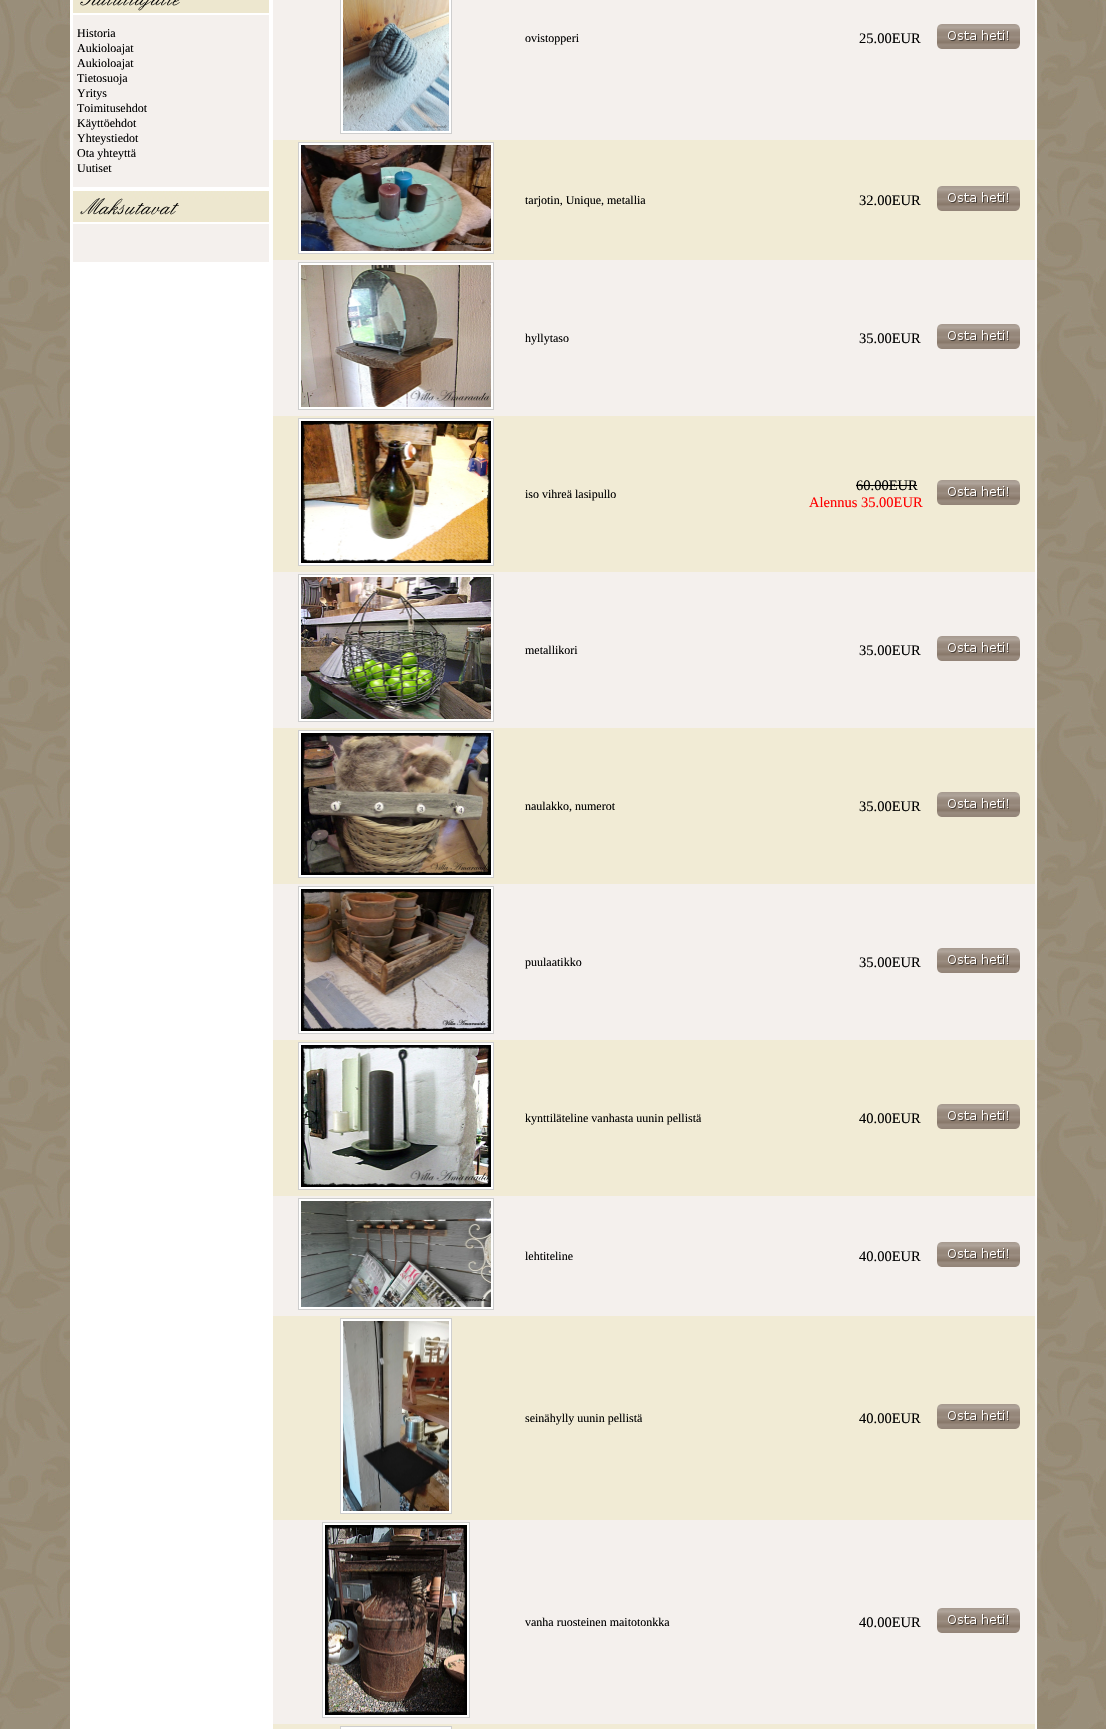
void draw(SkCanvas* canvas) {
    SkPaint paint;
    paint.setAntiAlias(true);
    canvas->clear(0xFFFFFFFF);
    canvas->drawImageRect(SkImages::DeferredFromEncodedData(SkData::MakeFromFileName("img1.png")), SkRect::MakeXYWH(0, 0, 1106, 1729), SkSamplingOptions());
    paint.setColor(0xFFFFFFFF);
    canvas->drawRect(SkRect::MakeXYWH(70, 0, 967, 1729), paint);
    paint.setColor(0xFFEDE7CF);
    canvas->drawRect(SkRect::MakeXYWH(73, 0, 196, 13), paint);
    canvas->drawImageRect(SkImages::DeferredFromEncodedData(SkData::MakeFromFileName("img2.png")), SkRect::MakeXYWH(80, 0, 100, 11), SkSamplingOptions());
    paint.setColor(0xFFF4F0ED);
    canvas->drawRect(SkRect::MakeXYWH(73, 15, 196, 172), paint);
    SkFont font1(fontMgr->matchFamilyStyle("Liberation Serif", SkFontStyle::Normal()), 12);
    font1.setSubpixel(true);
    paint.setColor(0xFF000000);
    canvas->drawString("Historia", 77, 37, font1, paint);
    canvas->drawString("Aukioloajat", 77, 52, font1, paint);
    canvas->drawString("Aukioloajat", 77, 67, font1, paint);
    canvas->drawString("Tietosuoja", 77, 82, font1, paint);
    canvas->drawString("Yritys", 77, 97, font1, paint);
    canvas->drawString("Toimitusehdot", 77, 112, font1, paint);
    canvas->drawString("Käyttöehdot", 77, 127, font1, paint);
    canvas->drawString("Yhteystiedot", 77, 142, font1, paint);
    canvas->drawString("Ota yhteyttä", 77, 157, font1, paint);
    canvas->drawString("Uutiset", 77, 172, font1, paint);
    canvas->drawImageRect(SkImages::DeferredFromEncodedData(SkData::MakeFromFileName("img3.png")), SkRect::MakeXYWH(73, 191, 6, 31), SkSamplingOptions());
    canvas->drawImageRect(SkImages::DeferredFromEncodedData(SkData::MakeFromFileName("img4.png")), SkRect::MakeXYWH(79, 191, 184, 31), SkSamplingOptions());
    canvas->drawImageRect(SkImages::DeferredFromEncodedData(SkData::MakeFromFileName("img5.png")), SkRect::MakeXYWH(80, 198, 99, 17), SkSamplingOptions());
    canvas->drawImageRect(SkImages::DeferredFromEncodedData(SkData::MakeFromFileName("img3.png")), SkRect::MakeXYWH(263, 191, 6, 31), SkSamplingOptions());
    paint.setColor(0xFFF4F0ED);
    canvas->drawRect(SkRect::MakeXYWH(73, 224, 196, 38), paint);
    canvas->drawRect(SkRect::MakeXYWH(273, 0, 762, 140), paint);
    paint.setColor(0xFFFFFFFF);
    canvas->drawRect(SkRect::MakeXYWH(340.5f, -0.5f, 111, 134), paint);
    paint.setStyle(SkPaint::kStroke_Style);
    paint.setStrokeWidth(1);
    paint.setColor(0xFFCECECE);
    canvas->drawRect(SkRect::MakeXYWH(340.5f, -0.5f, 111, 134), paint);
    canvas->drawImageRect(SkImages::DeferredFromEncodedData(SkData::MakeFromFileName("img6.png")), SkRect::MakeXYWH(343, 0, 106, 131), SkSamplingOptions());
    paint.setStyle(SkPaint::kFill_Style);
    paint.setColor(0xFF000000);
    canvas->drawString("ovistopperi", 525, 42, font1, paint);
    SkFont font2(fontMgr->matchFamilyStyle("Liberation Serif", SkFontStyle::Normal()), 14.5f);
    font2.setSubpixel(true);
    canvas->drawString("25.00EUR", 859, 43, font2, paint);
    canvas->drawImageRect(SkImages::DeferredFromEncodedData(SkData::MakeFromFileName("img7.png")), SkRect::MakeXYWH(937, 24, 83, 25), SkSamplingOptions());
    paint.setColor(0xFFF1EBD5);
    canvas->drawRect(SkRect::MakeXYWH(273, 140, 762, 120), paint);
    paint.setColor(0xFFFFFFFF);
    canvas->drawRect(SkRect::MakeXYWH(298.5f, 142.5f, 195, 111), paint);
    paint.setStyle(SkPaint::kStroke_Style);
    paint.setColor(0xFFCECECE);
    canvas->drawRect(SkRect::MakeXYWH(298.5f, 142.5f, 195, 111), paint);
    canvas->drawImageRect(SkImages::DeferredFromEncodedData(SkData::MakeFromFileName("img8.png")), SkRect::MakeXYWH(301, 145, 190, 106), SkSamplingOptions());
    paint.setStyle(SkPaint::kFill_Style);
    paint.setColor(0xFF000000);
    canvas->drawString("tarjotin, Unique, metallia", 525, 204, font1, paint);
    canvas->drawString("32.00EUR", 859, 205, font2, paint);
    canvas->drawImageRect(SkImages::DeferredFromEncodedData(SkData::MakeFromFileName("img9.png")), SkRect::MakeXYWH(937, 186, 83, 25), SkSamplingOptions());
    paint.setColor(0xFFF4F0ED);
    canvas->drawRect(SkRect::MakeXYWH(273, 260, 762, 156), paint);
    paint.setColor(0xFFFFFFFF);
    canvas->drawRect(SkRect::MakeXYWH(298.5f, 262.5f, 195, 147), paint);
    paint.setStyle(SkPaint::kStroke_Style);
    paint.setColor(0xFFCECECE);
    canvas->drawRect(SkRect::MakeXYWH(298.5f, 262.5f, 195, 147), paint);
    canvas->drawImageRect(SkImages::DeferredFromEncodedData(SkData::MakeFromFileName("img10.png")), SkRect::MakeXYWH(301, 265, 190, 142), SkSamplingOptions());
    paint.setStyle(SkPaint::kFill_Style);
    paint.setColor(0xFF000000);
    canvas->drawString("hyllytaso", 525, 342, font1, paint);
    canvas->drawString("35.00EUR", 859, 343, font2, paint);
    canvas->drawImageRect(SkImages::DeferredFromEncodedData(SkData::MakeFromFileName("img7.png")), SkRect::MakeXYWH(937, 324, 83, 25), SkSamplingOptions());
    paint.setColor(0xFFF1EBD5);
    canvas->drawRect(SkRect::MakeXYWH(273, 416, 762, 156), paint);
    paint.setColor(0xFFFFFFFF);
    canvas->drawRect(SkRect::MakeXYWH(298.5f, 418.5f, 195, 147), paint);
    paint.setStyle(SkPaint::kStroke_Style);
    paint.setColor(0xFFCECECE);
    canvas->drawRect(SkRect::MakeXYWH(298.5f, 418.5f, 195, 147), paint);
    canvas->drawImageRect(SkImages::DeferredFromEncodedData(SkData::MakeFromFileName("img11.png")), SkRect::MakeXYWH(301, 421, 190, 142), SkSamplingOptions());
    paint.setStyle(SkPaint::kFill_Style);
    paint.setColor(0xFF000000);
    canvas->drawString("iso vihreä lasipullo", 525, 498, font1, paint);
    canvas->drawString("60.00EUR", 856, 490, font2, paint);
    canvas->drawRect(SkRect::MakeXYWH(856, 485, 61, 1), paint);
    paint.setColor(0xFFFF0000);
    canvas->drawString("Alennus 35.00EUR", 809, 507, font2, paint);
    canvas->drawImageRect(SkImages::DeferredFromEncodedData(SkData::MakeFromFileName("img9.png")), SkRect::MakeXYWH(937, 480, 83, 25), SkSamplingOptions());
    paint.setColor(0xFFF4F0ED);
    canvas->drawRect(SkRect::MakeXYWH(273, 572, 762, 156), paint);
    paint.setColor(0xFFFFFFFF);
    canvas->drawRect(SkRect::MakeXYWH(298.5f, 574.5f, 195, 147), paint);
    paint.setStyle(SkPaint::kStroke_Style);
    paint.setColor(0xFFCECECE);
    canvas->drawRect(SkRect::MakeXYWH(298.5f, 574.5f, 195, 147), paint);
    canvas->drawImageRect(SkImages::DeferredFromEncodedData(SkData::MakeFromFileName("img12.png")), SkRect::MakeXYWH(301, 577, 190, 142), SkSamplingOptions());
    paint.setStyle(SkPaint::kFill_Style);
    paint.setColor(0xFF000000);
    canvas->drawString("metallikori", 525, 654, font1, paint);
    canvas->drawString("35.00EUR", 859, 655, font2, paint);
    canvas->drawImageRect(SkImages::DeferredFromEncodedData(SkData::MakeFromFileName("img7.png")), SkRect::MakeXYWH(937, 636, 83, 25), SkSamplingOptions());
    paint.setColor(0xFFF1EBD5);
    canvas->drawRect(SkRect::MakeXYWH(273, 728, 762, 156), paint);
    paint.setColor(0xFFFFFFFF);
    canvas->drawRect(SkRect::MakeXYWH(298.5f, 730.5f, 195, 147), paint);
    paint.setStyle(SkPaint::kStroke_Style);
    paint.setColor(0xFFCECECE);
    canvas->drawRect(SkRect::MakeXYWH(298.5f, 730.5f, 195, 147), paint);
    canvas->drawImageRect(SkImages::DeferredFromEncodedData(SkData::MakeFromFileName("img13.png")), SkRect::MakeXYWH(301, 733, 190, 142), SkSamplingOptions());
    paint.setStyle(SkPaint::kFill_Style);
    paint.setColor(0xFF000000);
    canvas->drawString("naulakko, numerot", 525, 810, font1, paint);
    canvas->drawString("35.00EUR", 859, 811, font2, paint);
    canvas->drawImageRect(SkImages::DeferredFromEncodedData(SkData::MakeFromFileName("img9.png")), SkRect::MakeXYWH(937, 792, 83, 25), SkSamplingOptions());
    paint.setColor(0xFFF4F0ED);
    canvas->drawRect(SkRect::MakeXYWH(273, 884, 762, 156), paint);
    paint.setColor(0xFFFFFFFF);
    canvas->drawRect(SkRect::MakeXYWH(298.5f, 886.5f, 195, 147), paint);
    paint.setStyle(SkPaint::kStroke_Style);
    paint.setColor(0xFFCECECE);
    canvas->drawRect(SkRect::MakeXYWH(298.5f, 886.5f, 195, 147), paint);
    canvas->drawImageRect(SkImages::DeferredFromEncodedData(SkData::MakeFromFileName("img14.png")), SkRect::MakeXYWH(301, 889, 190, 142), SkSamplingOptions());
    paint.setStyle(SkPaint::kFill_Style);
    paint.setColor(0xFF000000);
    canvas->drawString("puulaatikko", 525, 966, font1, paint);
    canvas->drawString("35.00EUR", 859, 967, font2, paint);
    canvas->drawImageRect(SkImages::DeferredFromEncodedData(SkData::MakeFromFileName("img7.png")), SkRect::MakeXYWH(937, 948, 83, 25), SkSamplingOptions());
    paint.setColor(0xFFF1EBD5);
    canvas->drawRect(SkRect::MakeXYWH(273, 1040, 762, 156), paint);
    paint.setColor(0xFFFFFFFF);
    canvas->drawRect(SkRect::MakeXYWH(298.5f, 1042.5f, 195, 147), paint);
    paint.setStyle(SkPaint::kStroke_Style);
    paint.setColor(0xFFCECECE);
    canvas->drawRect(SkRect::MakeXYWH(298.5f, 1042.5f, 195, 147), paint);
    canvas->drawImageRect(SkImages::DeferredFromEncodedData(SkData::MakeFromFileName("img15.png")), SkRect::MakeXYWH(301, 1045, 190, 142), SkSamplingOptions());
    paint.setStyle(SkPaint::kFill_Style);
    paint.setColor(0xFF000000);
    canvas->drawString("kynttiläteline vanhasta uunin pellistä", 525, 1122, font1, paint);
    canvas->drawString("40.00EUR", 859, 1123, font2, paint);
    canvas->drawImageRect(SkImages::DeferredFromEncodedData(SkData::MakeFromFileName("img9.png")), SkRect::MakeXYWH(937, 1104, 83, 25), SkSamplingOptions());
    paint.setColor(0xFFF4F0ED);
    canvas->drawRect(SkRect::MakeXYWH(273, 1196, 762, 120), paint);
    paint.setColor(0xFFFFFFFF);
    canvas->drawRect(SkRect::MakeXYWH(298.5f, 1198.5f, 195, 111), paint);
    paint.setStyle(SkPaint::kStroke_Style);
    paint.setColor(0xFFCECECE);
    canvas->drawRect(SkRect::MakeXYWH(298.5f, 1198.5f, 195, 111), paint);
    canvas->drawImageRect(SkImages::DeferredFromEncodedData(SkData::MakeFromFileName("img16.png")), SkRect::MakeXYWH(301, 1201, 190, 106), SkSamplingOptions());
    paint.setStyle(SkPaint::kFill_Style);
    paint.setColor(0xFF000000);
    canvas->drawString("lehtiteline", 525, 1260, font1, paint);
    canvas->drawString("40.00EUR", 859, 1261, font2, paint);
    canvas->drawImageRect(SkImages::DeferredFromEncodedData(SkData::MakeFromFileName("img7.png")), SkRect::MakeXYWH(937, 1242, 83, 25), SkSamplingOptions());
    paint.setColor(0xFFF1EBD5);
    canvas->drawRect(SkRect::MakeXYWH(273, 1316, 762, 204), paint);
    paint.setColor(0xFFFFFFFF);
    canvas->drawRect(SkRect::MakeXYWH(340.5f, 1318.5f, 111, 195), paint);
    paint.setStyle(SkPaint::kStroke_Style);
    paint.setColor(0xFFCECECE);
    canvas->drawRect(SkRect::MakeXYWH(340.5f, 1318.5f, 111, 195), paint);
    canvas->drawImageRect(SkImages::DeferredFromEncodedData(SkData::MakeFromFileName("img17.png")), SkRect::MakeXYWH(343, 1321, 106, 190), SkSamplingOptions());
    paint.setStyle(SkPaint::kFill_Style);
    paint.setColor(0xFF000000);
    canvas->drawString("seinähylly uunin pellistä", 525, 1422, font1, paint);
    canvas->drawString("40.00EUR", 859, 1423, font2, paint);
    canvas->drawImageRect(SkImages::DeferredFromEncodedData(SkData::MakeFromFileName("img9.png")), SkRect::MakeXYWH(937, 1404, 83, 25), SkSamplingOptions());
    paint.setColor(0xFFF4F0ED);
    canvas->drawRect(SkRect::MakeXYWH(273, 1520, 762, 204), paint);
    paint.setColor(0xFFFFFFFF);
    canvas->drawRect(SkRect::MakeXYWH(322.5f, 1522.5f, 147, 195), paint);
    paint.setStyle(SkPaint::kStroke_Style);
    paint.setColor(0xFFCECECE);
    canvas->drawRect(SkRect::MakeXYWH(322.5f, 1522.5f, 147, 195), paint);
    canvas->drawImageRect(SkImages::DeferredFromEncodedData(SkData::MakeFromFileName("img18.png")), SkRect::MakeXYWH(325, 1525, 142, 190), SkSamplingOptions());
    paint.setStyle(SkPaint::kFill_Style);
    paint.setColor(0xFF000000);
    canvas->drawString("vanha ruosteinen maitotonkka", 525, 1626, font1, paint);
    canvas->drawString("40.00EUR", 859, 1627, font2, paint);
    canvas->drawImageRect(SkImages::DeferredFromEncodedData(SkData::MakeFromFileName("img7.png")), SkRect::MakeXYWH(937, 1608, 83, 25), SkSamplingOptions());
    paint.setColor(0xFFF1EBD5);
    canvas->drawRect(SkRect::MakeXYWH(273, 1724, 762, 5), paint);
    paint.setColor(0xFFFFFFFF);
    canvas->drawRect(SkRect::MakeXYWH(340.5f, 1726.5f, 111, 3), paint);
    paint.setStyle(SkPaint::kStroke_Style);
    paint.setColor(0xFFCECECE);
    canvas->drawRect(SkRect::MakeXYWH(340.5f, 1726.5f, 111, 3), paint);
}
